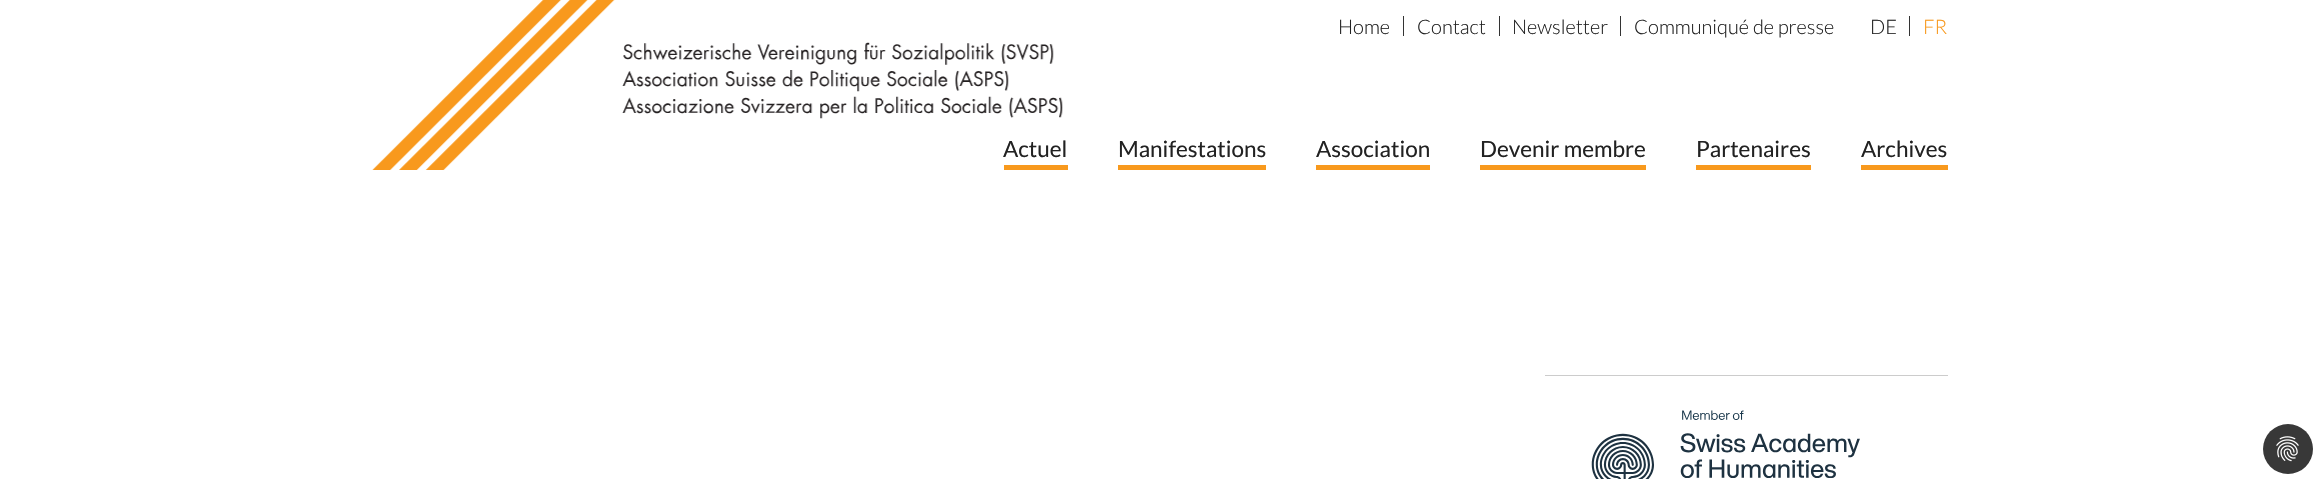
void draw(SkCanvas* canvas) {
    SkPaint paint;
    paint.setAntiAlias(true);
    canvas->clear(0xFFFFFFFF);
    canvas->drawImageRect(SkImages::DeferredFromEncodedData(SkData::MakeFromFileName("img1.png")), SkRect::MakeXYWH(372, 0, 691, 170), SkSamplingOptions());
    paint.setColor(0xFF333333);
    canvas->drawRect(SkRect::MakeXYWH(1403, 16, 1, 20), paint);
    SkFont font1(fontMgr->matchFamilyStyle("Lato", SkFontStyle(300, SkFontStyle::kNormal_Width, SkFontStyle::kUpright_Slant)), 20);
    font1.setSubpixel(true);
    paint.setColor(0xFF222222);
    canvas->drawString("Home", 1338, 34, font1, paint);
    paint.setColor(0xFF333333);
    canvas->drawRect(SkRect::MakeXYWH(1499, 16, 1, 20), paint);
    paint.setColor(0xFF222222);
    canvas->drawString("Contact", 1417, 34, font1, paint);
    paint.setColor(0xFF333333);
    canvas->drawRect(SkRect::MakeXYWH(1620, 16, 1, 20), paint);
    paint.setColor(0xFF222222);
    canvas->drawString("Newsletter", 1512, 34, font1, paint);
    canvas->drawString("Communiqué de presse", 1634, 34, font1, paint);
    paint.setColor(0xFF333333);
    canvas->drawRect(SkRect::MakeXYWH(1909, 16, 1, 20), paint);
    paint.setColor(0xFF222222);
    canvas->drawString("DE", 1870, 34, font1, paint);
    paint.setColor(0xFFF8991D);
    canvas->drawString("FR", 1923, 34, font1, paint);
    canvas->drawRect(SkRect::MakeXYWH(1004, 165, 64, 5), paint);
    SkFont font2(fontMgr->matchFamilyStyle("Lato", SkFontStyle::Normal()), 22.5f);
    font2.setSubpixel(true);
    paint.setColor(0xFF222222);
    canvas->drawString("Actuel", 1003, 157, font2, paint);
    paint.setColor(0xFFF8991D);
    canvas->drawRect(SkRect::MakeXYWH(1118, 165, 148, 5), paint);
    paint.setColor(0xFF222222);
    canvas->drawString("Manifestations", 1118, 157, font2, paint);
    paint.setColor(0xFFF8991D);
    canvas->drawRect(SkRect::MakeXYWH(1316, 165, 114, 5), paint);
    paint.setColor(0xFF222222);
    canvas->drawString("Association", 1316, 157, font2, paint);
    paint.setColor(0xFFF8991D);
    canvas->drawRect(SkRect::MakeXYWH(1480, 165, 166, 5), paint);
    paint.setColor(0xFF222222);
    canvas->drawString("Devenir membre", 1480, 157, font2, paint);
    paint.setColor(0xFFF8991D);
    canvas->drawRect(SkRect::MakeXYWH(1696, 165, 115, 5), paint);
    paint.setColor(0xFF222222);
    canvas->drawString("Partenaires", 1696, 157, font2, paint);
    paint.setColor(0xFFF8991D);
    canvas->drawRect(SkRect::MakeXYWH(1861, 165, 87, 5), paint);
    paint.setColor(0xFF222222);
    canvas->drawString("Archives", 1861, 157, font2, paint);
    paint.setColor(0xFFCCCCCC);
    canvas->drawRect(SkRect::MakeXYWH(1545, 375, 403, 1), paint);
    canvas->drawImageRect(SkImages::DeferredFromEncodedData(SkData::MakeFromFileName("img2.png")), SkRect::MakeXYWH(1591, 410, 269, 69), SkSamplingOptions());
    paint.setColor(0xFF383838);
    canvas->drawCircle(2288, 449, 25, paint);
    canvas->drawImageRect(SkImages::DeferredFromEncodedData(SkData::MakeFromFileName("img3.png")), SkRect::MakeXYWH(2276, 436, 23, 26), SkSamplingOptions());
}
